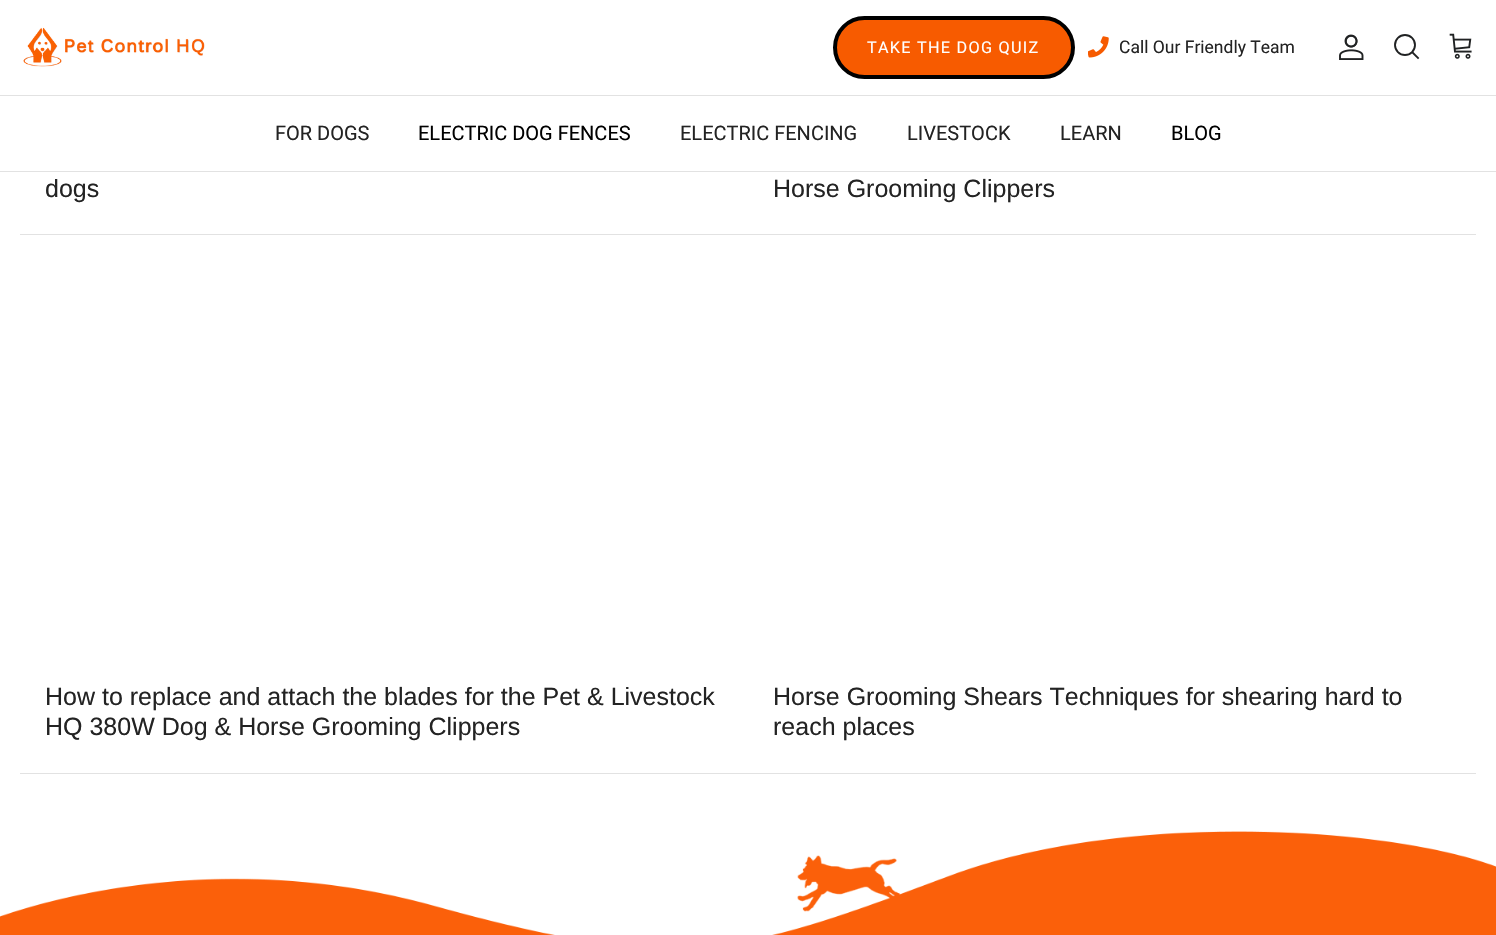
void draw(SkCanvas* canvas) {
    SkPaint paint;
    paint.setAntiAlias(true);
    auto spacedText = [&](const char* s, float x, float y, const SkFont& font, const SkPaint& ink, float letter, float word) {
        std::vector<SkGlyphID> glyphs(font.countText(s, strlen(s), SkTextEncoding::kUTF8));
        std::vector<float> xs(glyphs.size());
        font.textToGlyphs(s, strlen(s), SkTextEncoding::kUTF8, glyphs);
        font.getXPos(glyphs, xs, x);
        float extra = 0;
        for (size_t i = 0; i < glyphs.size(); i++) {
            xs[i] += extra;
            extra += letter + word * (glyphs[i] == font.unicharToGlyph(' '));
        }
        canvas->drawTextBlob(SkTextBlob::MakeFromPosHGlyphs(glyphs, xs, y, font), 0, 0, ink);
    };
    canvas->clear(0xFFFFFFFF);
    paint.setColor(0xFFE2E2E2);
    canvas->drawRect(SkRect::MakeXYWH(0, 95, 1496, 1), paint);
    canvas->drawImageRect(SkImages::DeferredFromEncodedData(SkData::MakeFromFileName("img1.png")), SkRect::MakeXYWH(23, 27, 182, 40), SkSamplingOptions());
    paint.setColor(0xFFF75B00);
    canvas->drawRoundRect(SkRect::MakeXYWH(835, 18, 238, 59), 29.5f, 29.5f, paint);
    paint.setStyle(SkPaint::kStroke_Style);
    paint.setStrokeWidth(4);
    paint.setColor(0xFF000000);
    canvas->drawRoundRect(SkRect::MakeXYWH(835, 18, 238, 59), 29.5f, 29.5f, paint);
    SkFont font1(fontMgr->matchFamilyStyle("Roboto", SkFontStyle::Normal()), 16.25f);
    font1.setSubpixel(true);
    paint.setStyle(SkPaint::kFill_Style);
    paint.setColor(0xFFFFFFFF);
    spacedText("TAKE THE DOG QUIZ", 867, 53, font1, paint, 1.25f, 0);
    canvas->drawImageRect(SkImages::DeferredFromEncodedData(SkData::MakeFromFileName("img2.png")), SkRect::MakeXYWH(1088, 36, 21, 22), SkSamplingOptions());
    SkFont font2(fontMgr->matchFamilyStyle("Roboto", SkFontStyle::Normal()), 17.5f);
    font2.setSubpixel(true);
    paint.setColor(0xFF232323);
    canvas->drawString("Call Our Friendly Team", 1119, 53, font2, paint);
    canvas->drawImageRect(SkImages::DeferredFromEncodedData(SkData::MakeFromFileName("img3.png")), SkRect::MakeXYWH(1339, 34, 25, 26), SkSamplingOptions());
    paint.setStyle(SkPaint::kStroke_Style);
    paint.setStrokeWidth(1.9f);
    paint.setColor(0xFF202223);
    canvas->drawCircle(1405, 45, 10, paint);
    paint.setStrokeCap(SkPaint::kSquare_Cap);
    canvas->drawPath(SkPathBuilder().moveTo(1412.5f, 52.5f).lineTo(1418, 58).detach(), paint);
    canvas->drawImageRect(SkImages::DeferredFromEncodedData(SkData::MakeFromFileName("img4.png")), SkRect::MakeXYWH(1449, 33, 23, 26), SkSamplingOptions());
    paint.setStyle(SkPaint::kFill_Style);
    paint.setColor(0xFFE2E2E2);
    canvas->drawRect(SkRect::MakeXYWH(0, 171, 1496, 1), paint);
    SkFont font3(fontMgr->matchFamilyStyle("Roboto", SkFontStyle::Normal()), 20);
    font3.setSubpixel(true);
    paint.setColor(0xFF232323);
    canvas->drawString("FOR DOGS", 275, 140, font3, paint);
    paint.setColor(0xFF000000);
    canvas->drawString("ELECTRIC DOG FENCES", 418, 140, font3, paint);
    paint.setColor(0xFF232323);
    canvas->drawString("ELECTRIC FENCING", 680, 140, font3, paint);
    canvas->drawString("LIVESTOCK", 907, 140, font3, paint);
    canvas->drawString("LEARN", 1060, 140, font3, paint);
    paint.setColor(0xFF000000);
    canvas->drawString("BLOG", 1171, 140, font3, paint);
    paint.setColor(0xFFE2E2E2);
    canvas->drawRect(SkRect::MakeXYWH(20, 234, 1456, 1), paint);
    SkFont font4(fontMgr->matchFamilyStyle("Liberation Sans", SkFontStyle::Normal()), 25);
    font4.setSubpixel(true);
    paint.setColor(0xFF232323);
    canvas->drawString("dogs", 45, 197, font4, paint);
    canvas->drawString("Horse Grooming Clippers", 773, 197, font4, paint);
    paint.setColor(0xFFE2E2E2);
    canvas->drawRect(SkRect::MakeXYWH(20, 773, 1456, 1), paint);
    paint.setColor(0xFF232323);
    canvas->drawString("How to replace and attach the blades for the Pet & Livestock", 45, 705, font4, paint);
    canvas->drawString("HQ 380W Dog & Horse Grooming Clippers", 45, 735, font4, paint);
    canvas->drawString("Horse Grooming Shears Techniques for shearing hard to", 773, 705, font4, paint);
    canvas->drawString("reach places", 773, 735, font4, paint);
    canvas->drawImageRect(SkImages::DeferredFromEncodedData(SkData::MakeFromFileName("img5.png")), SkRect::MakeXYWH(0, 831, 1496, 104), SkSamplingOptions());
}
